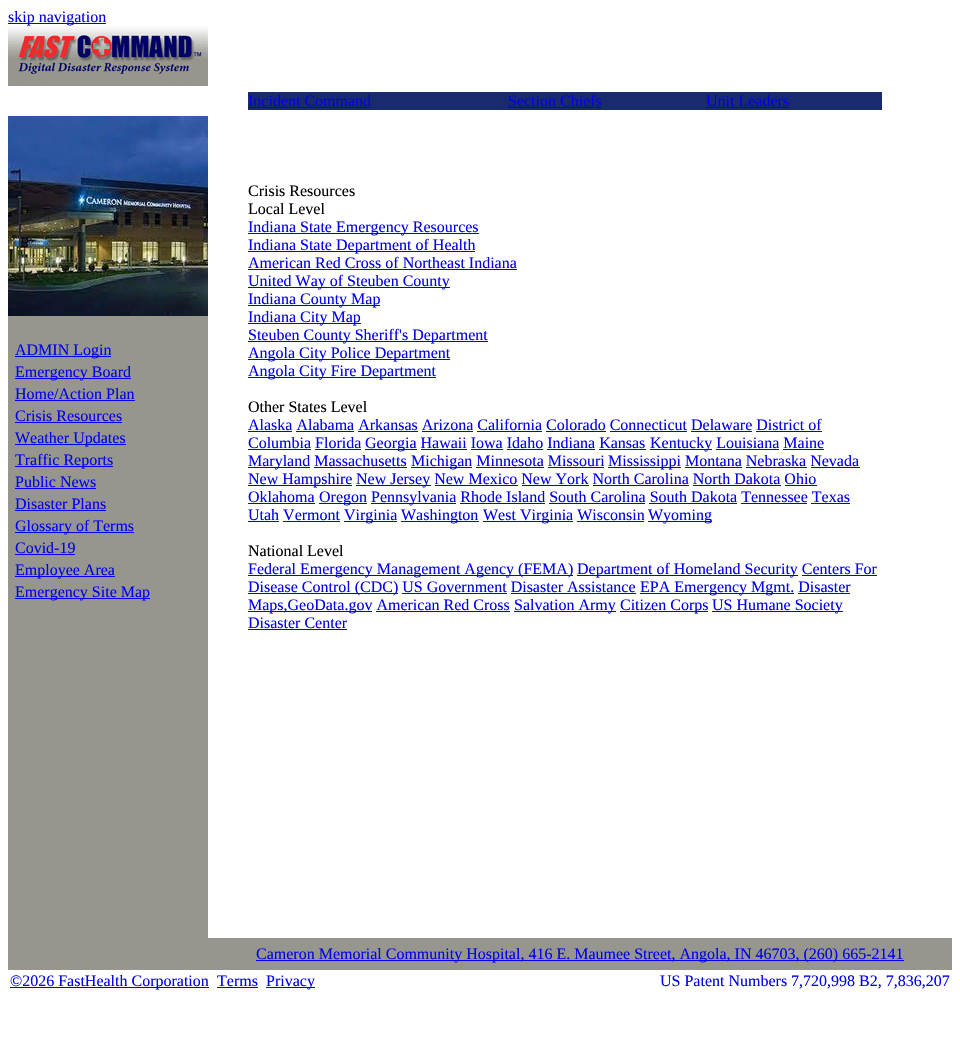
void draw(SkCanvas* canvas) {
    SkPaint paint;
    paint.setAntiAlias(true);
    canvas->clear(0xFFFFFFFF);
    paint.setColor(0xFF0000EE);
    canvas->drawRect(SkRect::MakeXYWH(8, 23, 98, 1), paint);
    SkFont font1(fontMgr->matchFamilyStyle("Liberation Serif", SkFontStyle::Normal()), 16);
    font1.setSubpixel(true);
    canvas->drawString("skip navigation", 8, 22, font1, paint);
    canvas->drawImageRect(SkImages::DeferredFromEncodedData(SkData::MakeFromFileName("img1.png")), SkRect::MakeXYWH(8, 26, 200, 60), SkSamplingOptions());
    paint.setColor(0xFF192B6C);
    canvas->drawRect(SkRect::MakeXYWH(248, 92, 634, 18), paint);
    paint.setColor(0xFF0000EE);
    canvas->drawString("Incident Command", 248, 106, font1, paint);
    canvas->drawRect(SkRect::MakeXYWH(248, 107, 123, 1), paint);
    canvas->drawString("Section Chiefs", 508, 106, font1, paint);
    canvas->drawRect(SkRect::MakeXYWH(508, 107, 94, 1), paint);
    canvas->drawString("Unit Leaders", 706, 106, font1, paint);
    canvas->drawRect(SkRect::MakeXYWH(706, 107, 83, 1), paint);
    paint.setColor(0xFF96968E);
    canvas->drawRect(SkRect::MakeXYWH(8, 316, 200, 654), paint);
    canvas->drawImageRect(SkImages::DeferredFromEncodedData(SkData::MakeFromFileName("img2.png")), SkRect::MakeXYWH(8, 116, 200, 200), SkSamplingOptions());
    paint.setColor(0xFF0000EE);
    canvas->drawRect(SkRect::MakeXYWH(15, 356, 96, 1), paint);
    canvas->drawString("ADMIN Login", 15, 355, font1, paint);
    canvas->drawRect(SkRect::MakeXYWH(15, 378, 116, 1), paint);
    canvas->drawString("Emergency Board", 15, 377, font1, paint);
    canvas->drawString("Home/Action Plan", 15, 399, font1, paint);
    canvas->drawRect(SkRect::MakeXYWH(15, 400, 120, 1), paint);
    canvas->drawString("Crisis Resources", 15, 421, font1, paint);
    canvas->drawRect(SkRect::MakeXYWH(15, 422, 107, 1), paint);
    canvas->drawRect(SkRect::MakeXYWH(15, 444, 111, 1), paint);
    canvas->drawString("Weather Updates", 15, 443, font1, paint);
    canvas->drawRect(SkRect::MakeXYWH(15, 466, 98, 1), paint);
    canvas->drawString("Traffic Reports", 15, 465, font1, paint);
    canvas->drawString("Public News", 15, 487, font1, paint);
    canvas->drawRect(SkRect::MakeXYWH(15, 488, 81, 1), paint);
    canvas->drawString("Disaster Plans", 15, 509, font1, paint);
    canvas->drawRect(SkRect::MakeXYWH(15, 510, 91, 1), paint);
    canvas->drawRect(SkRect::MakeXYWH(15, 532, 119, 1), paint);
    canvas->drawString("Glossary of Terms", 15, 531, font1, paint);
    canvas->drawString("Covid-19", 15, 553, font1, paint);
    canvas->drawRect(SkRect::MakeXYWH(15, 554, 60, 1), paint);
    canvas->drawRect(SkRect::MakeXYWH(15, 576, 100, 1), paint);
    canvas->drawString("Employee Area", 15, 575, font1, paint);
    canvas->drawRect(SkRect::MakeXYWH(15, 598, 135, 1), paint);
    canvas->drawString("Emergency Site Map", 15, 597, font1, paint);
    paint.setColor(0xFF000000);
    canvas->drawString("Crisis Resources", 248, 196, font1, paint);
    canvas->drawString("Local Level", 248, 214, font1, paint);
    paint.setColor(0xFF0000EE);
    canvas->drawRect(SkRect::MakeXYWH(248, 233, 231, 1), paint);
    canvas->drawString("Indiana State Emergency Resources", 248, 232, font1, paint);
    canvas->drawRect(SkRect::MakeXYWH(248, 251, 227, 1), paint);
    canvas->drawString("Indiana State Department of Health", 248, 250, font1, paint);
    canvas->drawString("American Red Cross of Northeast Indiana", 248, 268, font1, paint);
    canvas->drawRect(SkRect::MakeXYWH(248, 269, 269, 1), paint);
    canvas->drawRect(SkRect::MakeXYWH(248, 287, 202, 1), paint);
    canvas->drawString("United Way of Steuben County", 248, 286, font1, paint);
    canvas->drawRect(SkRect::MakeXYWH(248, 305, 132, 1), paint);
    canvas->drawString("Indiana County Map", 248, 304, font1, paint);
    canvas->drawRect(SkRect::MakeXYWH(248, 323, 113, 1), paint);
    canvas->drawString("Indiana City Map", 248, 322, font1, paint);
    canvas->drawRect(SkRect::MakeXYWH(248, 341, 240, 1), paint);
    canvas->drawString("Steuben County Sheriff's Department", 248, 340, font1, paint);
    canvas->drawRect(SkRect::MakeXYWH(248, 359, 202, 1), paint);
    canvas->drawString("Angola City Police Department", 248, 358, font1, paint);
    canvas->drawRect(SkRect::MakeXYWH(248, 377, 188, 1), paint);
    canvas->drawString("Angola City Fire Department", 248, 376, font1, paint);
    paint.setColor(0xFF000000);
    canvas->drawString("Other States Level", 248, 412, font1, paint);
    paint.setColor(0xFF0000EE);
    canvas->drawString("Alaska Alabama Arkansas Arizona California Colorado Connecticut Delaware District of", 248, 430, font1, paint);
    canvas->drawRect(SkRect::MakeXYWH(248, 431, 44, 1), paint);
    canvas->drawRect(SkRect::MakeXYWH(296, 431, 58, 1), paint);
    canvas->drawRect(SkRect::MakeXYWH(358, 431, 60, 1), paint);
    canvas->drawRect(SkRect::MakeXYWH(422, 431, 51, 1), paint);
    canvas->drawRect(SkRect::MakeXYWH(477, 431, 65, 1), paint);
    canvas->drawRect(SkRect::MakeXYWH(546, 431, 60, 1), paint);
    canvas->drawRect(SkRect::MakeXYWH(610, 431, 77, 1), paint);
    canvas->drawRect(SkRect::MakeXYWH(691, 431, 61, 1), paint);
    canvas->drawString("Columbia Florida", 248, 448, font1, paint);
    canvas->drawRect(SkRect::MakeXYWH(756, 431, 66, 1), paint);
    canvas->drawRect(SkRect::MakeXYWH(248, 449, 63, 1), paint);
    canvas->drawRect(SkRect::MakeXYWH(365, 449, 52, 1), paint);
    canvas->drawString("Georgia Hawaii Iowa Idaho Indiana Kansas", 365, 448, font1, paint);
    canvas->drawRect(SkRect::MakeXYWH(650, 449, 62, 1), paint);
    canvas->drawString("Kentucky Louisiana Maine", 650, 448, font1, paint);
    canvas->drawRect(SkRect::MakeXYWH(315, 449, 46, 1), paint);
    canvas->drawRect(SkRect::MakeXYWH(421, 449, 46, 1), paint);
    canvas->drawRect(SkRect::MakeXYWH(471, 449, 32, 1), paint);
    canvas->drawRect(SkRect::MakeXYWH(507, 449, 36, 1), paint);
    canvas->drawRect(SkRect::MakeXYWH(547, 449, 48, 1), paint);
    canvas->drawRect(SkRect::MakeXYWH(599, 449, 47, 1), paint);
    canvas->drawRect(SkRect::MakeXYWH(716, 449, 63, 1), paint);
    canvas->drawRect(SkRect::MakeXYWH(783, 449, 41, 1), paint);
    canvas->drawRect(SkRect::MakeXYWH(248, 467, 62, 1), paint);
    canvas->drawString("Maryland Massachusetts", 248, 466, font1, paint);
    canvas->drawRect(SkRect::MakeXYWH(411, 467, 61, 1), paint);
    canvas->drawString("Michigan Minnesota Missouri", 411, 466, font1, paint);
    canvas->drawRect(SkRect::MakeXYWH(608, 467, 73, 1), paint);
    canvas->drawString("Mississippi Montana Nebraska Nevada", 608, 466, font1, paint);
    canvas->drawRect(SkRect::MakeXYWH(314, 467, 93, 1), paint);
    canvas->drawRect(SkRect::MakeXYWH(476, 467, 68, 1), paint);
    canvas->drawRect(SkRect::MakeXYWH(548, 467, 56, 1), paint);
    canvas->drawRect(SkRect::MakeXYWH(685, 467, 57, 1), paint);
    canvas->drawRect(SkRect::MakeXYWH(746, 467, 61, 1), paint);
    canvas->drawRect(SkRect::MakeXYWH(811, 467, 49, 1), paint);
    canvas->drawRect(SkRect::MakeXYWH(248, 485, 104, 1), paint);
    canvas->drawString("New Hampshire", 248, 484, font1, paint);
    canvas->drawRect(SkRect::MakeXYWH(356, 485, 75, 1), paint);
    canvas->drawString("New Jersey New Mexico New York North Carolina North Dakota Ohio", 356, 484, font1, paint);
    canvas->drawRect(SkRect::MakeXYWH(435, 485, 83, 1), paint);
    canvas->drawRect(SkRect::MakeXYWH(522, 485, 67, 1), paint);
    canvas->drawRect(SkRect::MakeXYWH(593, 485, 96, 1), paint);
    canvas->drawRect(SkRect::MakeXYWH(693, 485, 88, 1), paint);
    canvas->drawRect(SkRect::MakeXYWH(785, 485, 32, 1), paint);
    canvas->drawString("Oklahoma", 248, 502, font1, paint);
    canvas->drawRect(SkRect::MakeXYWH(248, 503, 67, 1), paint);
    canvas->drawRect(SkRect::MakeXYWH(319, 503, 48, 1), paint);
    canvas->drawString("Oregon", 319, 502, font1, paint);
    canvas->drawRect(SkRect::MakeXYWH(371, 503, 85, 1), paint);
    canvas->drawString("Pennsylvania Rhode Island South Carolina South Dakota Tennessee Texas", 371, 502, font1, paint);
    canvas->drawRect(SkRect::MakeXYWH(460, 503, 85, 1), paint);
    canvas->drawRect(SkRect::MakeXYWH(549, 503, 96, 1), paint);
    canvas->drawRect(SkRect::MakeXYWH(649, 503, 88, 1), paint);
    canvas->drawRect(SkRect::MakeXYWH(741, 503, 66, 1), paint);
    canvas->drawRect(SkRect::MakeXYWH(811, 503, 39, 1), paint);
    canvas->drawString("Utah Vermont", 248, 520, font1, paint);
    canvas->drawRect(SkRect::MakeXYWH(248, 521, 31, 1), paint);
    canvas->drawRect(SkRect::MakeXYWH(344, 521, 53, 1), paint);
    canvas->drawString("Virginia", 344, 520, font1, paint);
    canvas->drawRect(SkRect::MakeXYWH(401, 521, 78, 1), paint);
    canvas->drawString("Washington", 401, 520, font1, paint);
    canvas->drawRect(SkRect::MakeXYWH(483, 521, 90, 1), paint);
    canvas->drawString("West Virginia Wisconsin", 483, 520, font1, paint);
    canvas->drawRect(SkRect::MakeXYWH(648, 521, 64, 1), paint);
    canvas->drawString("Wyoming", 648, 520, font1, paint);
    canvas->drawRect(SkRect::MakeXYWH(283, 521, 57, 1), paint);
    canvas->drawRect(SkRect::MakeXYWH(577, 521, 67, 1), paint);
    paint.setColor(0xFF000000);
    canvas->drawString("National Level", 248, 556, font1, paint);
    paint.setColor(0xFF0000EE);
    canvas->drawRect(SkRect::MakeXYWH(248, 575, 325, 1), paint);
    canvas->drawString("Federal Emergency Management Agency (FEMA)", 248, 574, font1, paint);
    canvas->drawRect(SkRect::MakeXYWH(577, 575, 221, 1), paint);
    canvas->drawString("Department of Homeland Security Centers For", 577, 574, font1, paint);
    canvas->drawRect(SkRect::MakeXYWH(248, 593, 150, 1), paint);
    canvas->drawString("Disease Control (CDC) US Government Disaster Assistance", 248, 592, font1, paint);
    canvas->drawRect(SkRect::MakeXYWH(802, 575, 75, 1), paint);
    canvas->drawRect(SkRect::MakeXYWH(640, 593, 154, 1), paint);
    canvas->drawString("EPA Emergency Mgmt. Disaster", 640, 592, font1, paint);
    canvas->drawRect(SkRect::MakeXYWH(402, 593, 105, 1), paint);
    canvas->drawRect(SkRect::MakeXYWH(511, 593, 125, 1), paint);
    canvas->drawRect(SkRect::MakeXYWH(248, 611, 124, 1), paint);
    canvas->drawString("Maps,GeoData.gov American Red Cross", 248, 610, font1, paint);
    canvas->drawRect(SkRect::MakeXYWH(798, 593, 52, 1), paint);
    canvas->drawRect(SkRect::MakeXYWH(514, 611, 102, 1), paint);
    canvas->drawString("Salvation Army", 514, 610, font1, paint);
    canvas->drawRect(SkRect::MakeXYWH(620, 611, 88, 1), paint);
    canvas->drawString("Citizen Corps", 620, 610, font1, paint);
    canvas->drawRect(SkRect::MakeXYWH(712, 611, 131, 1), paint);
    canvas->drawString("US Humane Society", 712, 610, font1, paint);
    canvas->drawRect(SkRect::MakeXYWH(376, 611, 134, 1), paint);
    canvas->drawString("Disaster Center", 248, 628, font1, paint);
    canvas->drawRect(SkRect::MakeXYWH(248, 629, 99, 1), paint);
    paint.setColor(0xFF96968E);
    canvas->drawRect(SkRect::MakeXYWH(208, 938, 744, 32), paint);
    paint.setColor(0xFF0000EE);
    canvas->drawRect(SkRect::MakeXYWH(256, 960, 648, 1), paint);
    canvas->drawString("Cameron Memorial Community Hospital, 416 E. Maumee Street, Angola, IN 46703, (260) 665-2141", 256, 959, font1, paint);
    canvas->drawRect(SkRect::MakeXYWH(10, 987, 199, 1), paint);
    canvas->drawString("©2026 FastHealth Corporation", 10, 986, font1, paint);
    canvas->drawString("Terms", 217, 986, font1, paint);
    canvas->drawRect(SkRect::MakeXYWH(217, 987, 41, 1), paint);
    canvas->drawRect(SkRect::MakeXYWH(266, 987, 49, 1), paint);
    canvas->drawString("Privacy", 266, 986, font1, paint);
    canvas->drawString("US Patent Numbers 7,720,998 B2, 7,836,207", 660, 986, font1, paint);
}
